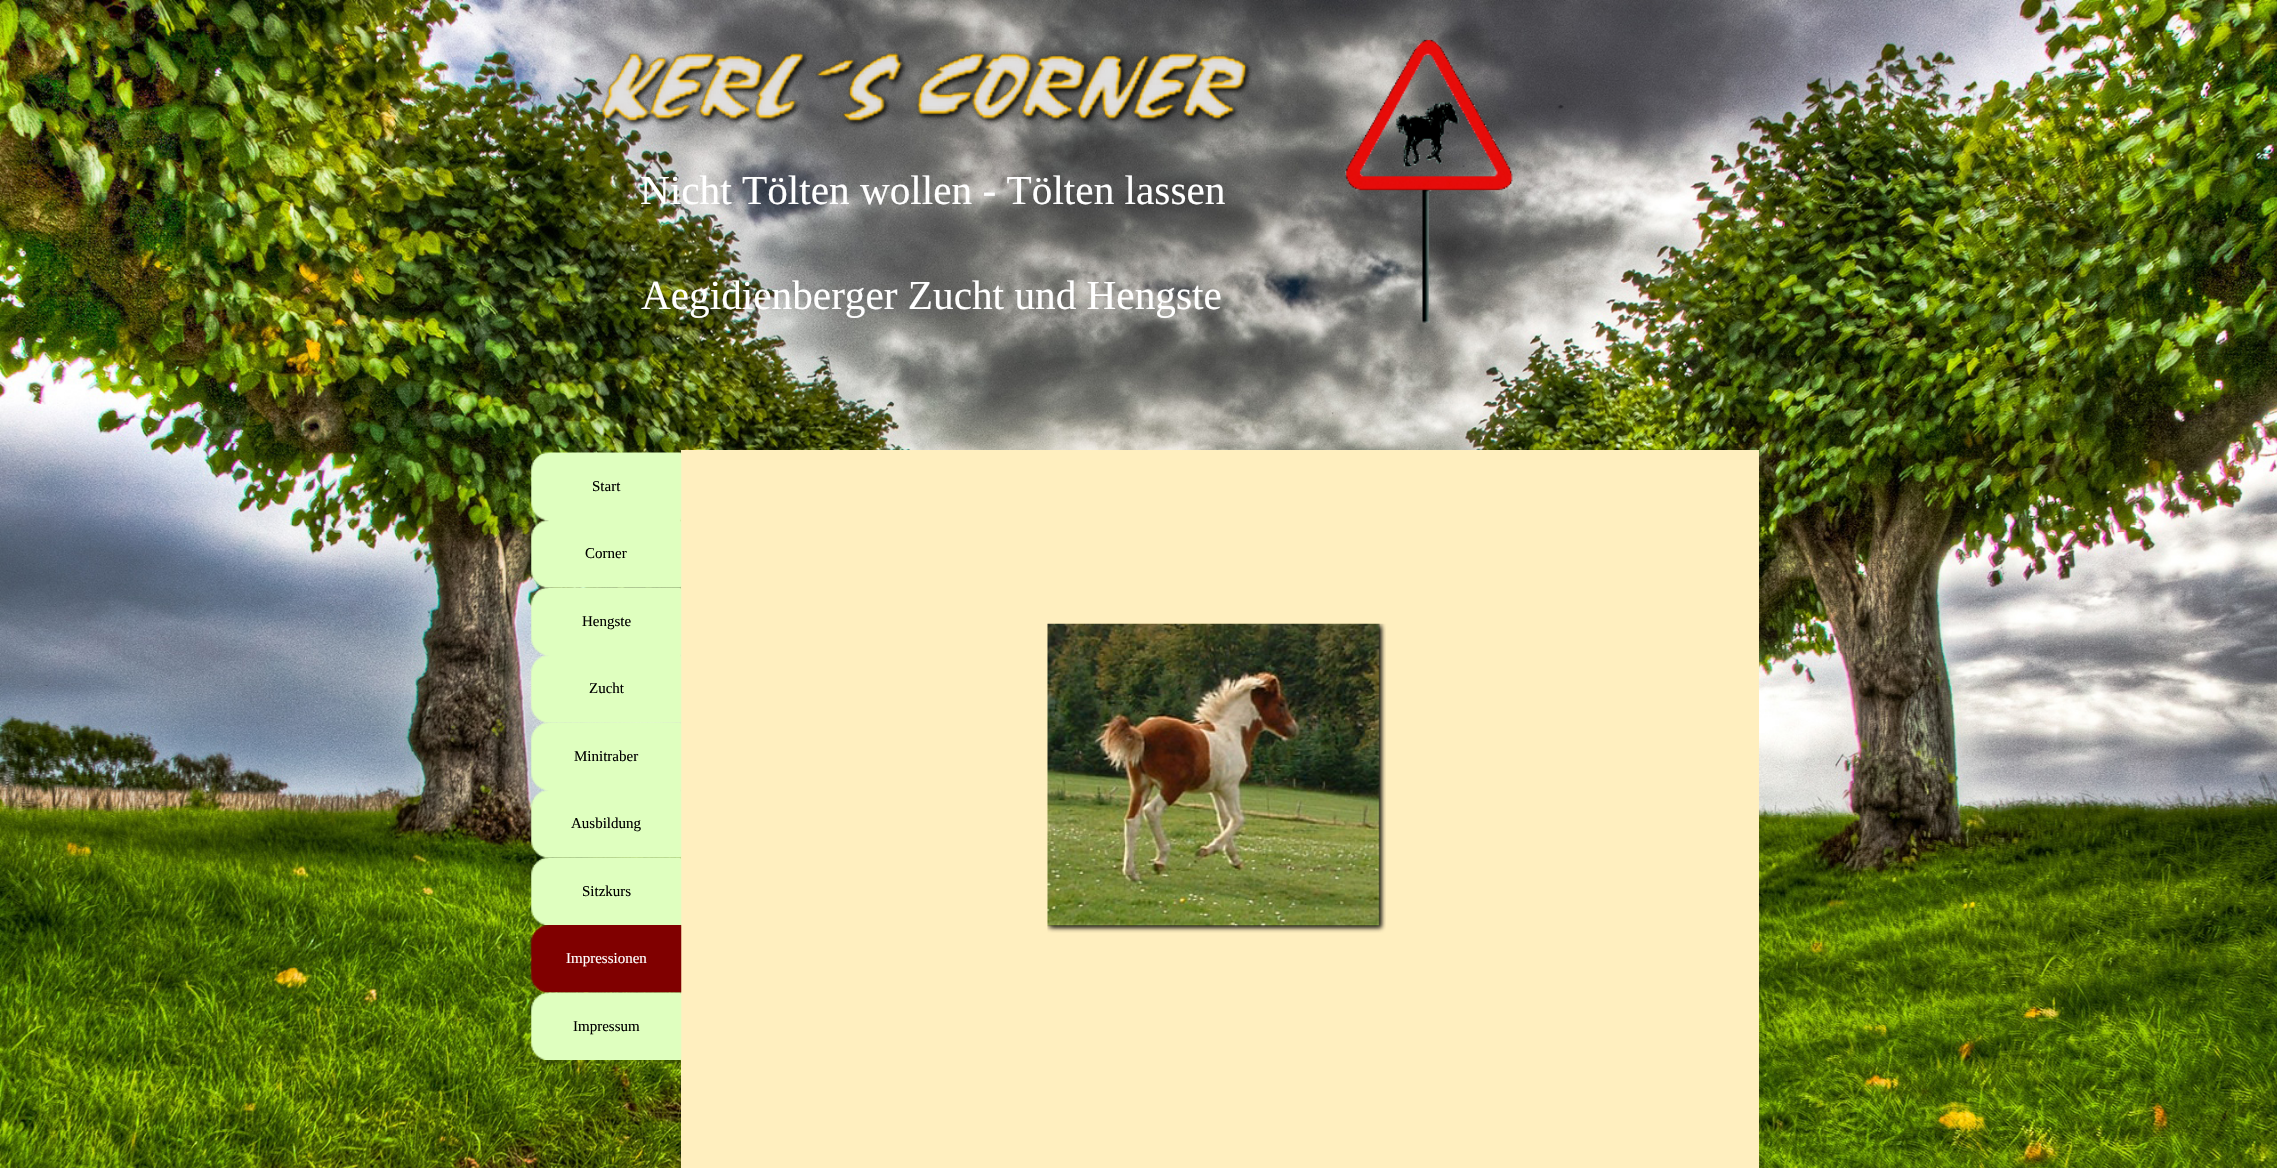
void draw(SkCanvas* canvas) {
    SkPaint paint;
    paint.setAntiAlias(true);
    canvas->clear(0xFFFFFFFF);
    canvas->drawImageRect(SkImages::DeferredFromEncodedData(SkData::MakeFromFileName("img1.png")), SkRect::MakeXYWH(0, 0, 2277, 1168), SkSamplingOptions());
    canvas->drawImageRect(SkImages::DeferredFromEncodedData(SkData::MakeFromFileName("img2.png")), SkRect::MakeXYWH(599, 51, 653, 77), SkSamplingOptions());
    canvas->drawImageRect(SkImages::DeferredFromEncodedData(SkData::MakeFromFileName("img3.png")), SkRect::MakeXYWH(1345, 39, 168, 284), SkSamplingOptions());
    SkFont font1(fontMgr->matchFamilyStyle("Liberation Serif", SkFontStyle::Normal()), 41.25f);
    font1.setSubpixel(true);
    paint.setColor(0xFFFFFFFF);
    canvas->drawString("Nicht Tölten wollen - Tölten lassen", 640, 204, font1, paint);
    canvas->drawString("Aegidienberger Zucht und Hengste", 641, 309, font1, paint);
    paint.setColor(0xFFFFEFBF);
    canvas->drawRect(SkRect::MakeXYWH(681, 450, 1078, 718), paint);
    canvas->drawImageRect(SkImages::DeferredFromEncodedData(SkData::MakeFromFileName("img4.png")), SkRect::MakeXYWH(531, 452, 151, 68), SkSamplingOptions());
    SkFont font2(fontMgr->matchFamilyStyle("Liberation Serif", SkFontStyle::Normal()), 15);
    font2.setSubpixel(true);
    paint.setColor(0xFF000000);
    canvas->drawString("Start", 592, 491, font2, paint);
    canvas->drawImageRect(SkImages::DeferredFromEncodedData(SkData::MakeFromFileName("img5.png")), SkRect::MakeXYWH(531, 520, 151, 68), SkSamplingOptions());
    canvas->drawString("Corner", 585, 558, font2, paint);
    canvas->drawImageRect(SkImages::DeferredFromEncodedData(SkData::MakeFromFileName("img6.png")), SkRect::MakeXYWH(531, 587, 151, 68), SkSamplingOptions());
    canvas->drawString("Hengste", 582, 626, font2, paint);
    canvas->drawImageRect(SkImages::DeferredFromEncodedData(SkData::MakeFromFileName("img7.png")), SkRect::MakeXYWH(531, 655, 151, 68), SkSamplingOptions());
    canvas->drawString("Zucht", 589, 693, font2, paint);
    canvas->drawImageRect(SkImages::DeferredFromEncodedData(SkData::MakeFromFileName("img8.png")), SkRect::MakeXYWH(531, 722, 151, 68), SkSamplingOptions());
    canvas->drawString("Minitraber", 574, 761, font2, paint);
    canvas->drawImageRect(SkImages::DeferredFromEncodedData(SkData::MakeFromFileName("img9.png")), SkRect::MakeXYWH(531, 790, 151, 68), SkSamplingOptions());
    canvas->drawString("Ausbildung", 571, 828, font2, paint);
    canvas->drawImageRect(SkImages::DeferredFromEncodedData(SkData::MakeFromFileName("img10.png")), SkRect::MakeXYWH(531, 857, 151, 68), SkSamplingOptions());
    canvas->drawString("Sitzkurs", 582, 896, font2, paint);
    canvas->drawImageRect(SkImages::DeferredFromEncodedData(SkData::MakeFromFileName("img11.png")), SkRect::MakeXYWH(531, 925, 151, 68), SkSamplingOptions());
    paint.setColor(0xFFFFFFFF);
    canvas->drawString("Impressionen", 566, 963, font2, paint);
    canvas->drawImageRect(SkImages::DeferredFromEncodedData(SkData::MakeFromFileName("img12.png")), SkRect::MakeXYWH(531, 992, 151, 68), SkSamplingOptions());
    paint.setColor(0xFF000000);
    canvas->drawString("Impressum", 573, 1031, font2, paint);
    canvas->drawImageRect(SkImages::DeferredFromEncodedData(SkData::MakeFromFileName("img13.png")), SkRect::MakeXYWH(1047, 623, 339, 310), SkSamplingOptions());
}
